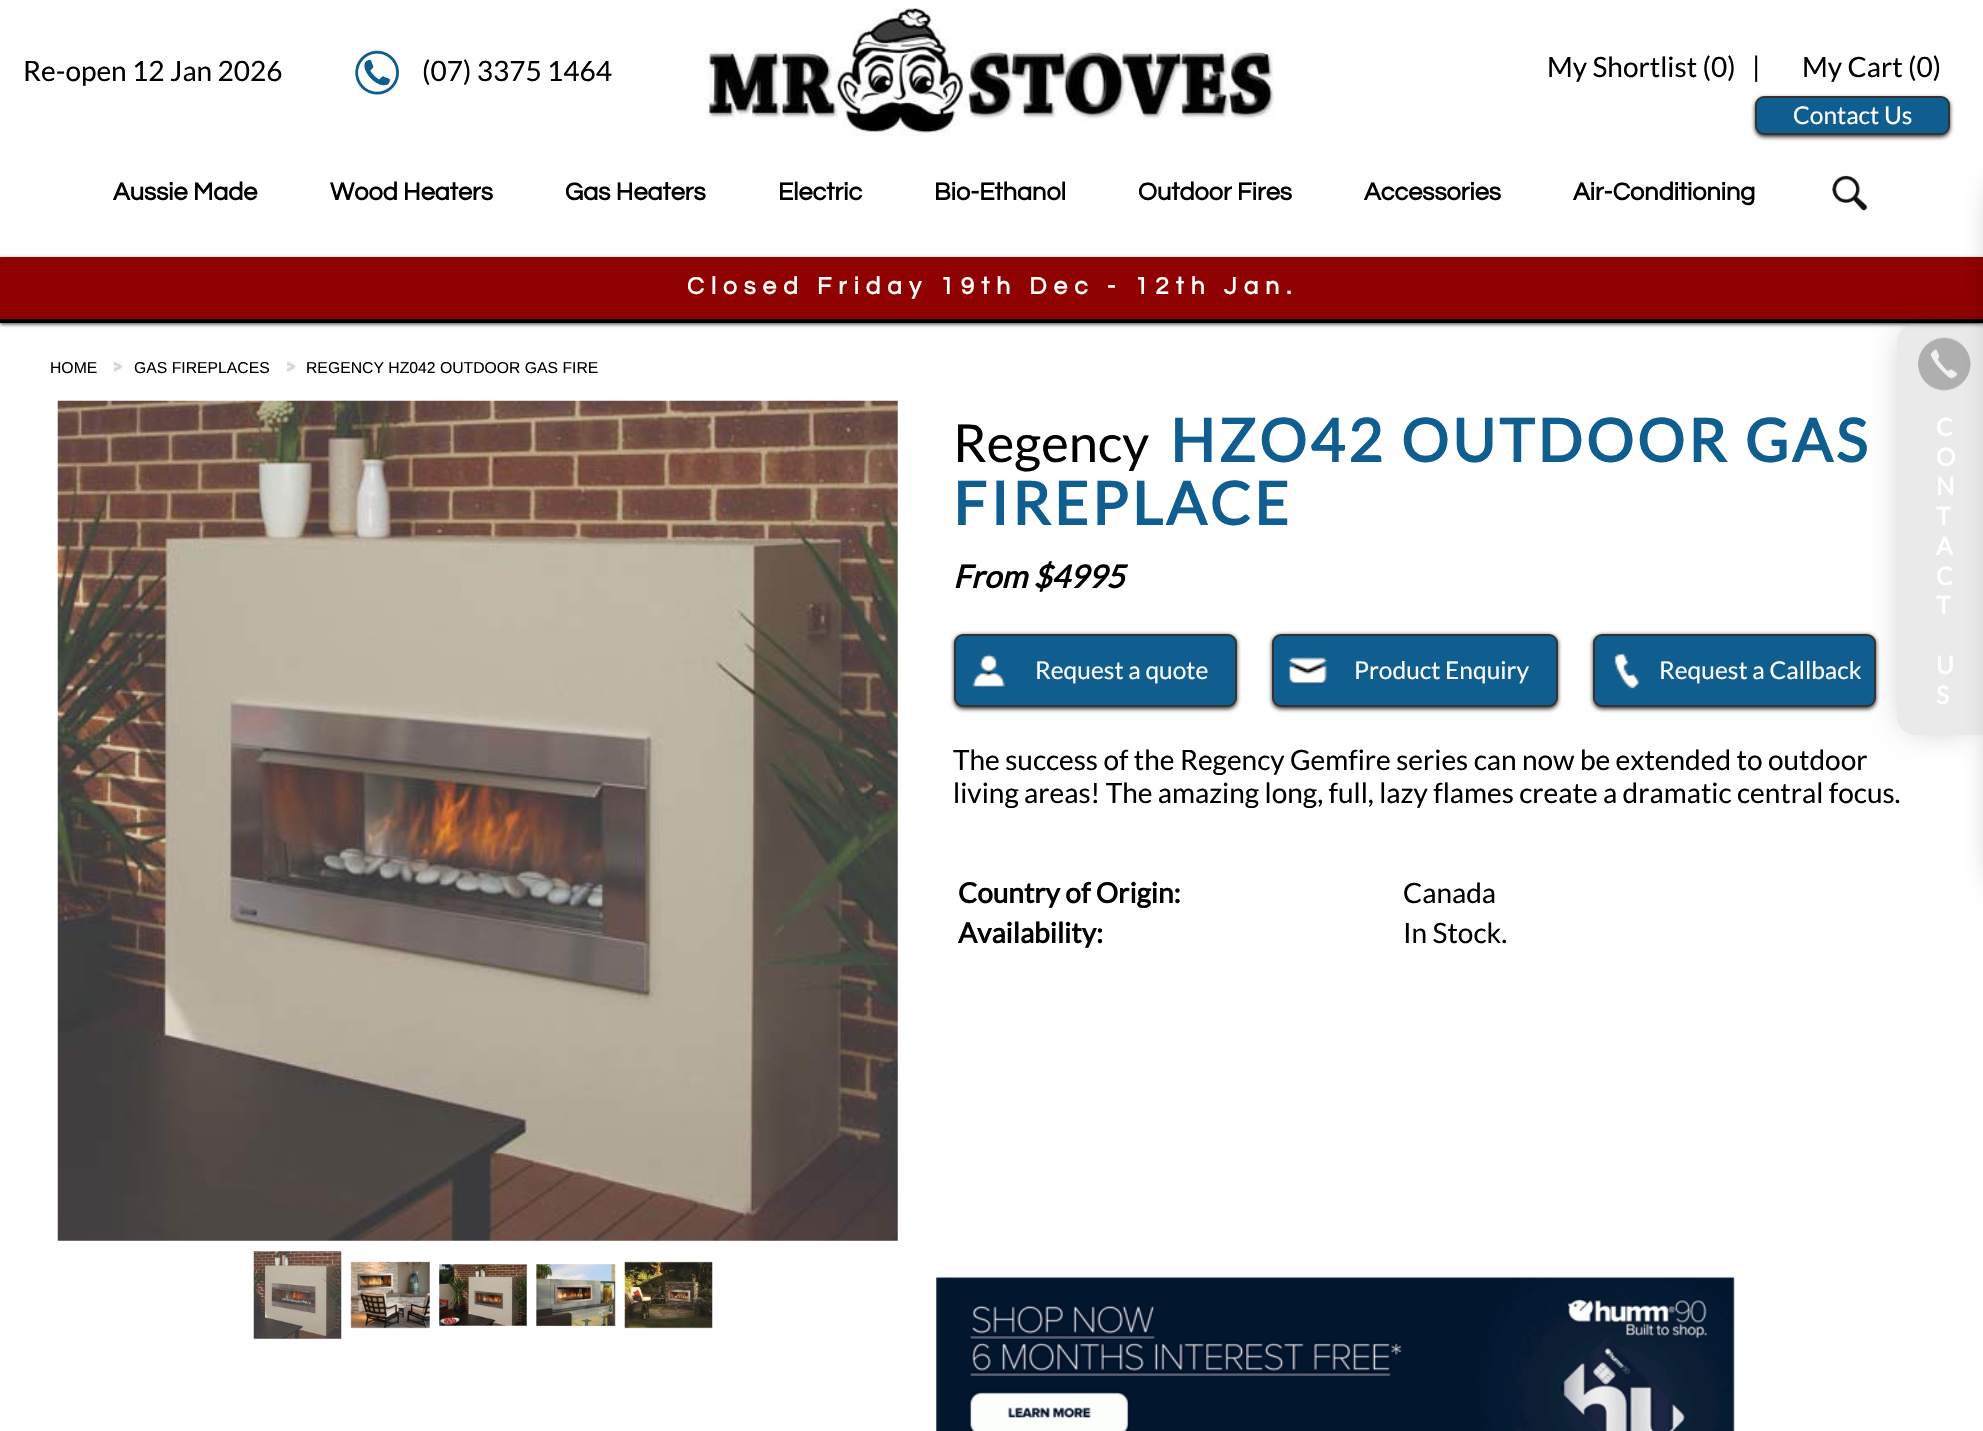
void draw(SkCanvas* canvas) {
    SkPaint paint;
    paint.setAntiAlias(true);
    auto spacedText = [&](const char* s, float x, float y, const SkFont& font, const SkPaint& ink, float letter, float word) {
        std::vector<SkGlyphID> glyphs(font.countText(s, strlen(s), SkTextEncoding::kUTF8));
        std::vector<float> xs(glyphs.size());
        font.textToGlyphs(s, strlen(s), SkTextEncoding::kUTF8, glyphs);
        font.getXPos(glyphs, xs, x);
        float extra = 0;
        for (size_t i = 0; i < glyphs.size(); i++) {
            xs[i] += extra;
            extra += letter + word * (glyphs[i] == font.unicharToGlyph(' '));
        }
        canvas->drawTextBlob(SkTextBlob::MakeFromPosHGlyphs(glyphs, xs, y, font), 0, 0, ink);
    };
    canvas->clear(0xFFFFFFFF);
    SkFont font1(fontMgr->matchFamilyStyle("Lato", SkFontStyle::Normal()), 28);
    font1.setSubpixel(true);
    paint.setColor(0xFF000000);
    canvas->drawString("Re-open 12 Jan 2026", 23, 81, font1, paint);
    canvas->drawImageRect(SkImages::DeferredFromEncodedData(SkData::MakeFromFileName("img1.png")), SkRect::MakeXYWH(355, 50, 44, 45), SkSamplingOptions());
    canvas->drawString("(07) 3375 1464", 422, 81, font1, paint);
    canvas->drawImageRect(SkImages::DeferredFromEncodedData(SkData::MakeFromFileName("img2.png")), SkRect::MakeXYWH(705, 8, 569, 128), SkSamplingOptions());
    canvas->drawString("My Shortlist (0)", 1547, 77, font1, paint);
    canvas->drawString("|", 1752, 77, font1, paint);
    canvas->drawString("My Cart (0)", 1802, 77, font1, paint);
    paint.setColor(0xFF333333);
    paint.setMaskFilter(SkMaskFilter::MakeBlur(kNormal_SkBlurStyle, 2));
    canvas->drawRoundRect(SkRect::MakeXYWH(1755, 98, 195, 39), 9, 9, paint);
    paint.setMaskFilter(nullptr);
    paint.setColor(0xFF105E8F);
    canvas->drawRoundRect(SkRect::MakeXYWH(1756, 97, 193, 37), 8, 8, paint);
    paint.setStyle(SkPaint::kStroke_Style);
    paint.setStrokeWidth(2);
    paint.setColor(0xFF333333);
    canvas->drawRoundRect(SkRect::MakeXYWH(1756, 97, 193, 37), 8, 8, paint);
    SkFont font2(fontMgr->matchFamilyStyle("Lato", SkFontStyle::Normal()), 24.5f);
    font2.setSubpixel(true);
    paint.setStyle(SkPaint::kFill_Style);
    paint.setColor(0xFFFFFFFF);
    canvas->drawString("Contact Us", 1793, 124, font2, paint);
    SkFont font3(fontMgr->matchFamilyStyle("Questrial", SkFontStyle::Bold()), 25.25f);
    font3.setSubpixel(true);
    paint.setColor(0xFF000000);
    canvas->drawString("Aussie Made", 113, 200, font3, paint);
    canvas->drawString("Wood Heaters", 330, 200, font3, paint);
    canvas->drawString("Gas Heaters", 565, 200, font3, paint);
    canvas->drawString("Electric", 778, 200, font3, paint);
    canvas->drawString("Bio-Ethanol", 934, 200, font3, paint);
    canvas->drawString("Outdoor Fires", 1138, 200, font3, paint);
    canvas->drawString("Accessories", 1364, 200, font3, paint);
    canvas->drawString("Air-Conditioning", 1573, 200, font3, paint);
    canvas->drawImageRect(SkImages::DeferredFromEncodedData(SkData::MakeFromFileName("img3.png")), SkRect::MakeXYWH(1832, 175, 36, 36), SkSamplingOptions());
    paint.setColor(0xFF333333);
    paint.setMaskFilter(SkMaskFilter::MakeBlur(kNormal_SkBlurStyle, 2));
    canvas->drawRect(SkRect::MakeXYWH(0, 259, 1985, 65), paint);
    paint.setMaskFilter(nullptr);
    paint.setColor(0xFF900101);
    canvas->drawRect(SkRect::MakeXYWH(0, 257, 1983, 62), paint);
    paint.setColor(0xFF000000);
    canvas->drawRect(SkRect::MakeXYWH(0, 319, 1983, 4), paint);
    paint.setMaskFilter(SkMaskFilter::MakeBlur(kNormal_SkBlurStyle, 17.5f));
    canvas->drawRoundRect(SkRect::MakeXYWH(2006, 187, 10, 693), 5, 5, paint);
    paint.setMaskFilter(nullptr);
    SkFont font4(fontMgr->matchFamilyStyle("Questrial", SkFontStyle::Bold()), 24.5f);
    font4.setSubpixel(true);
    paint.setColor(0xFFFFFFFF);
    spacedText("Closed Friday 19th Dec - 12th Jan.", 687, 294, font4, paint, 7, 0);
    canvas->drawImageRect(SkImages::DeferredFromEncodedData(SkData::MakeFromFileName("img4.png")), SkRect::MakeXYWH(113, 361, 10, 11), SkSamplingOptions());
    SkFont font5(fontMgr->matchFamilyStyle("Liberation Sans", SkFontStyle::Normal()), 15.75f);
    font5.setSubpixel(true);
    paint.setColor(0xFF000000);
    canvas->drawString("HOME", 50, 373, font5, paint);
    canvas->drawImageRect(SkImages::DeferredFromEncodedData(SkData::MakeFromFileName("img5.png")), SkRect::MakeXYWH(287, 361, 9, 11), SkSamplingOptions());
    canvas->drawString("GAS FIREPLACES", 134, 373, font5, paint);
    canvas->drawString("REGENCY HZ042 OUTDOOR GAS FIRE", 306, 373, font5, paint);
    canvas->drawImageRect(SkImages::DeferredFromEncodedData(SkData::MakeFromFileName("img6.png")), SkRect::MakeXYWH(57, 400, 841, 841), SkSamplingOptions());
    canvas->drawImageRect(SkImages::DeferredFromEncodedData(SkData::MakeFromFileName("img7.png")), SkRect::MakeXYWH(253, 1251, 89, 88), SkSamplingOptions());
    canvas->drawImageRect(SkImages::DeferredFromEncodedData(SkData::MakeFromFileName("img8.png")), SkRect::MakeXYWH(350, 1261, 80, 68), SkSamplingOptions());
    canvas->drawImageRect(SkImages::DeferredFromEncodedData(SkData::MakeFromFileName("img9.png")), SkRect::MakeXYWH(439, 1264, 88, 63), SkSamplingOptions());
    canvas->drawImageRect(SkImages::DeferredFromEncodedData(SkData::MakeFromFileName("img10.png")), SkRect::MakeXYWH(536, 1264, 80, 63), SkSamplingOptions());
    canvas->drawImageRect(SkImages::DeferredFromEncodedData(SkData::MakeFromFileName("img11.png")), SkRect::MakeXYWH(624, 1260, 89, 69), SkSamplingOptions());
    SkFont font6(fontMgr->matchFamilyStyle("Lato", SkFontStyle::Normal()), 52.5f);
    font6.setSubpixel(true);
    canvas->drawString("Regency", 953, 462, font6, paint);
    SkFont font7(fontMgr->matchFamilyStyle("Lato", SkFontStyle::Bold()), 59.5f);
    font7.setSubpixel(true);
    paint.setColor(0xFF105E8F);
    spacedText("HZO42 OUTDOOR GAS", 1170, 462, font7, paint, 3.5f, 0);
    spacedText("FIREPLACE", 953, 525, font7, paint, 3.5f, 0);
    SkFont font8(fontMgr->matchFamilyStyle("Lato", SkFontStyle::BoldItalic()), 31.5f);
    font8.setSubpixel(true);
    paint.setColor(0xFF000000);
    canvas->drawString("From $4995", 953, 588, font8, paint);
    paint.setColor(0xFF333333);
    paint.setMaskFilter(SkMaskFilter::MakeBlur(kNormal_SkBlurStyle, 2));
    canvas->drawRoundRect(SkRect::MakeXYWH(954, 635, 283, 74), 9, 9, paint);
    paint.setMaskFilter(nullptr);
    paint.setColor(0xFF105E8F);
    canvas->drawRoundRect(SkRect::MakeXYWH(955, 635, 281, 71), 8, 8, paint);
    paint.setStyle(SkPaint::kStroke_Style);
    paint.setColor(0xFF333333);
    canvas->drawRoundRect(SkRect::MakeXYWH(955, 635, 281, 71), 8, 8, paint);
    canvas->drawImageRect(SkImages::DeferredFromEncodedData(SkData::MakeFromFileName("img12.png")), SkRect::MakeXYWH(972, 654, 33, 34), SkSamplingOptions());
    paint.setStyle(SkPaint::kFill_Style);
    paint.setColor(0xFFFFFFFF);
    canvas->drawString("Request a quote", 1035, 679, font2, paint);
    paint.setColor(0xFF333333);
    paint.setMaskFilter(SkMaskFilter::MakeBlur(kNormal_SkBlurStyle, 2));
    canvas->drawRoundRect(SkRect::MakeXYWH(1272, 635, 286, 74), 9, 9, paint);
    paint.setMaskFilter(nullptr);
    paint.setColor(0xFF105E8F);
    canvas->drawRoundRect(SkRect::MakeXYWH(1273, 635, 284, 71), 8, 8, paint);
    paint.setStyle(SkPaint::kStroke_Style);
    paint.setColor(0xFF333333);
    canvas->drawRoundRect(SkRect::MakeXYWH(1273, 635, 284, 71), 8, 8, paint);
    canvas->drawImageRect(SkImages::DeferredFromEncodedData(SkData::MakeFromFileName("img13.png")), SkRect::MakeXYWH(1289, 657, 38, 28), SkSamplingOptions());
    paint.setStyle(SkPaint::kFill_Style);
    paint.setColor(0xFFFFFFFF);
    canvas->drawString("Product Enquiry", 1354, 679, font2, paint);
    paint.setColor(0xFF333333);
    paint.setMaskFilter(SkMaskFilter::MakeBlur(kNormal_SkBlurStyle, 2));
    canvas->drawRoundRect(SkRect::MakeXYWH(1593, 635, 283, 74), 9, 9, paint);
    paint.setMaskFilter(nullptr);
    paint.setColor(0xFF105E8F);
    canvas->drawRoundRect(SkRect::MakeXYWH(1594, 635, 281, 71), 8, 8, paint);
    paint.setStyle(SkPaint::kStroke_Style);
    paint.setColor(0xFF333333);
    canvas->drawRoundRect(SkRect::MakeXYWH(1594, 635, 281, 71), 8, 8, paint);
    canvas->drawImageRect(SkImages::DeferredFromEncodedData(SkData::MakeFromFileName("img14.png")), SkRect::MakeXYWH(1613, 652, 27, 37), SkSamplingOptions());
    paint.setStyle(SkPaint::kFill_Style);
    paint.setColor(0xFFFFFFFF);
    canvas->drawString("Request a Callback", 1659, 679, font2, paint);
    paint.setColor(0xFF000000);
    canvas->drawString("The success of the Regency Gemfire series can now be extended to outdoor", 953, 770, font1, paint);
    canvas->drawString("living areas! The amazing long, full, lazy flames create a dramatic central focus.", 953, 803, font1, paint);
    SkFont font9(fontMgr->matchFamilyStyle("Lato", SkFontStyle::Bold()), 28);
    font9.setSubpixel(true);
    canvas->drawString("Country of Origin:", 958, 903, font9, paint);
    canvas->drawString("Canada", 1403, 903, font1, paint);
    canvas->drawString("Availability:", 958, 943, font9, paint);
    canvas->drawString("In Stock.", 1403, 943, font1, paint);
    canvas->drawImageRect(SkImages::DeferredFromEncodedData(SkData::MakeFromFileName("img15.png")), SkRect::MakeXYWH(936, 1277, 799, 154), SkSamplingOptions());
    canvas->save();
    canvas->clipPath(SkPathBuilder(SkPathFillType::kEvenOdd).moveTo(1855, 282).lineTo(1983, 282).lineTo(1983, 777).lineTo(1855, 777).close().moveTo(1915, 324).lineTo(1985, 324).lineTo(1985, 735).lineTo(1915, 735).cubicTo(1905, 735, 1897, 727, 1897, 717).lineTo(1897, 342).cubicTo(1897, 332, 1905, 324, 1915, 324).close().detach(), true);
    paint.setColor(0x57000000);
    paint.setMaskFilter(SkMaskFilter::MakeBlur(kNormal_SkBlurStyle, 17.5f));
    canvas->drawRoundRect(SkRect::MakeXYWH(1909, 336, 63, 387), 5, 5, paint);
    paint.setMaskFilter(nullptr);
    canvas->restore();
    paint.setColor(0x57C0C0C0);
    canvas->drawPath(SkPathBuilder().moveTo(1915, 324).lineTo(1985, 324).lineTo(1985, 735).lineTo(1915, 735).cubicTo(1905, 735, 1897, 727, 1897, 717).lineTo(1897, 342).cubicTo(1897, 332, 1905, 324, 1915, 324).close().detach(), paint);
    canvas->drawImageRect(SkImages::DeferredFromEncodedData(SkData::MakeFromFileName("img16.png")), SkRect::MakeXYWH(1918, 337, 53, 54), SkSamplingOptions());
    SkFont font10(fontMgr->matchFamilyStyle("Lato", SkFontStyle::Bold()), 24.5f);
    font10.setSubpixel(true);
    paint.setColor(0xFFFFFFFF);
    canvas->drawString("C", 1936, 436, font10, paint);
    canvas->drawString("O", 1936, 466, font10, paint);
    canvas->drawString("N", 1936, 495, font10, paint);
    canvas->drawString("T", 1936, 525, font10, paint);
    canvas->drawString("A", 1936, 555, font10, paint);
    canvas->drawString("C", 1936, 585, font10, paint);
    canvas->drawString("T", 1936, 614, font10, paint);
    canvas->drawString("U", 1936, 674, font10, paint);
    canvas->drawString("S", 1936, 704, font10, paint);
}
